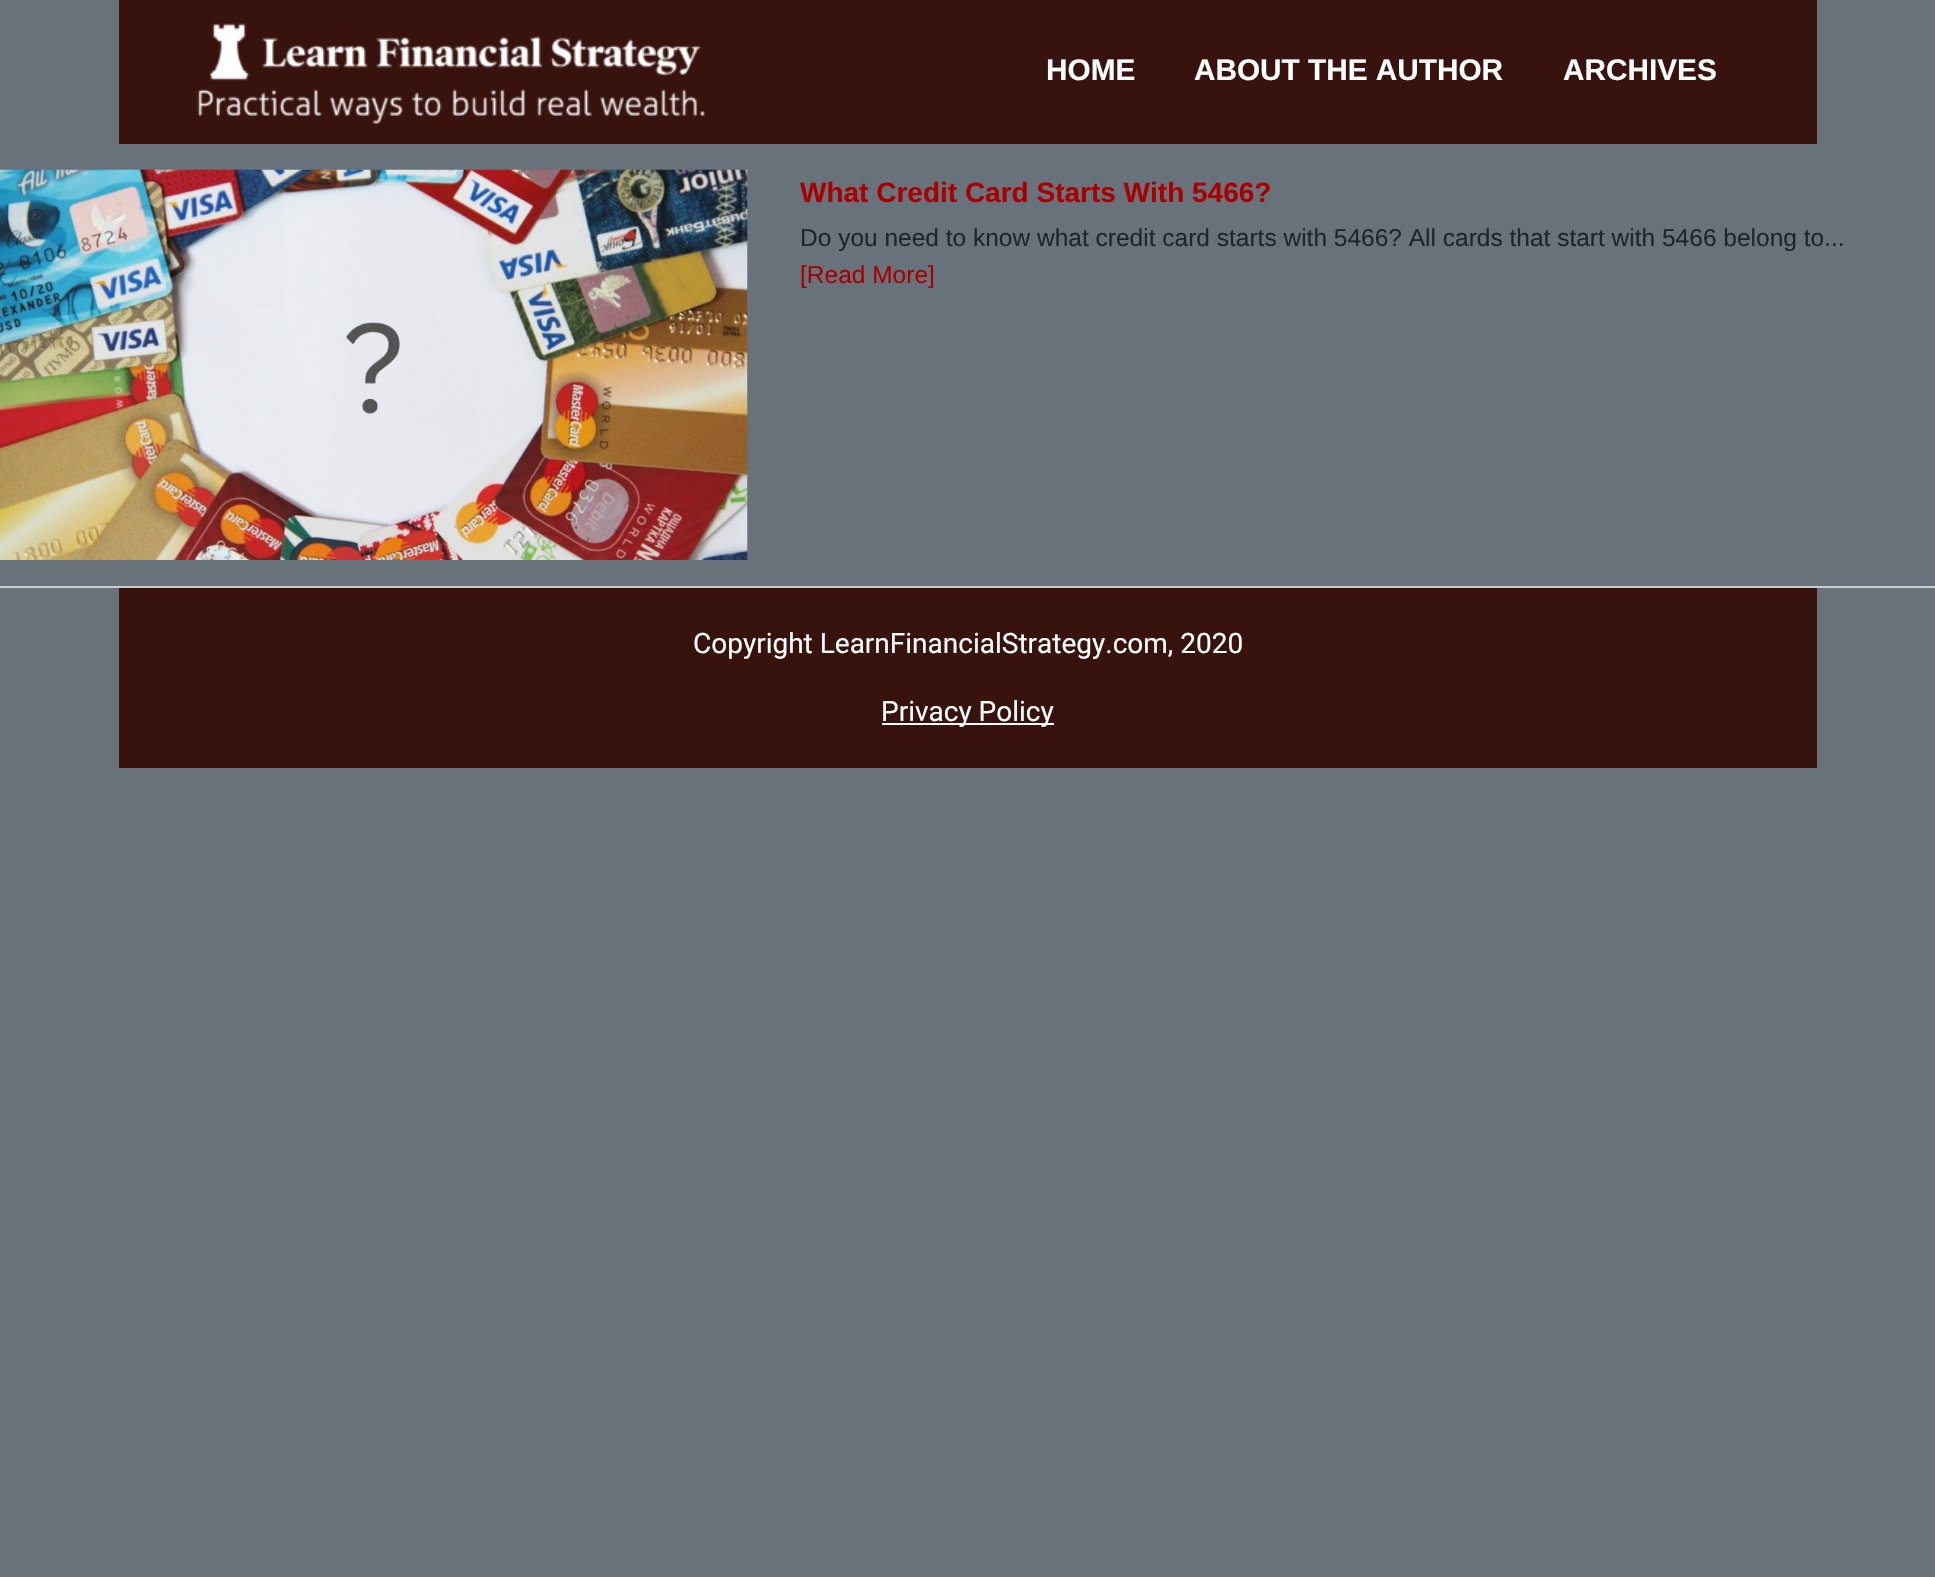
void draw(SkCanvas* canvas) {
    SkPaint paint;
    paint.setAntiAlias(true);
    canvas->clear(0xFF67727B);
    paint.setColor(0xFF38130D);
    canvas->drawRect(SkRect::MakeXYWH(119, 0, 1698, 144), paint);
    canvas->drawImageRect(SkImages::DeferredFromEncodedData(SkData::MakeFromFileName("img1.png")), SkRect::MakeXYWH(197, 23, 509, 102), SkSamplingOptions());
    SkFont font1(fontMgr->matchFamilyStyle("Liberation Sans", SkFontStyle::Bold()), 29.75f);
    font1.setSubpixel(true);
    paint.setColor(0xFFFFFFFF);
    canvas->drawString("HOME", 1046, 80, font1, paint);
    canvas->drawString("ABOUT THE AUTHOR", 1194, 80, font1, paint);
    canvas->drawString("ARCHIVES", 1563, 80, font1, paint);
    paint.setColor(0xFFCCCCCC);
    canvas->drawRect(SkRect::MakeXYWH(0, 586, 1935, 2), paint);
    canvas->drawImageRect(SkImages::DeferredFromEncodedData(SkData::MakeFromFileName("img2.png")), SkRect::MakeXYWH(0, 169, 748, 391), SkSamplingOptions());
    SkFont font2(fontMgr->matchFamilyStyle("Liberation Sans", SkFontStyle::Bold()), 28);
    font2.setSubpixel(true);
    paint.setColor(0xFFA90000);
    canvas->drawString("What Credit Card Starts With 5466?", 800, 202, font2, paint);
    SkFont font3(fontMgr->matchFamilyStyle("Liberation Sans", SkFontStyle::Normal()), 24.5f);
    font3.setSubpixel(true);
    paint.setColor(0xFF212529);
    canvas->drawString("Do you need to know what credit card starts with 5466? All cards that start with 5466 belong to...", 800, 246, font3, paint);
    paint.setColor(0xFFA90000);
    canvas->drawString("[Read More]", 800, 283, font3, paint);
    paint.setColor(0xFF38130D);
    canvas->drawRect(SkRect::MakeXYWH(119, 588, 1698, 180), paint);
    SkFont font4(fontMgr->matchFamilyStyle("Roboto", SkFontStyle::Normal()), 28);
    font4.setSubpixel(true);
    paint.setColor(0xFFFFFFFF);
    canvas->drawString("Copyright LearnFinancialStrategy.com, 2020", 693, 653, font4, paint);
    canvas->drawRect(SkRect::MakeXYWH(882, 723, 172, 2), paint);
    canvas->drawString("Privacy Policy", 881, 721, font4, paint);
}
